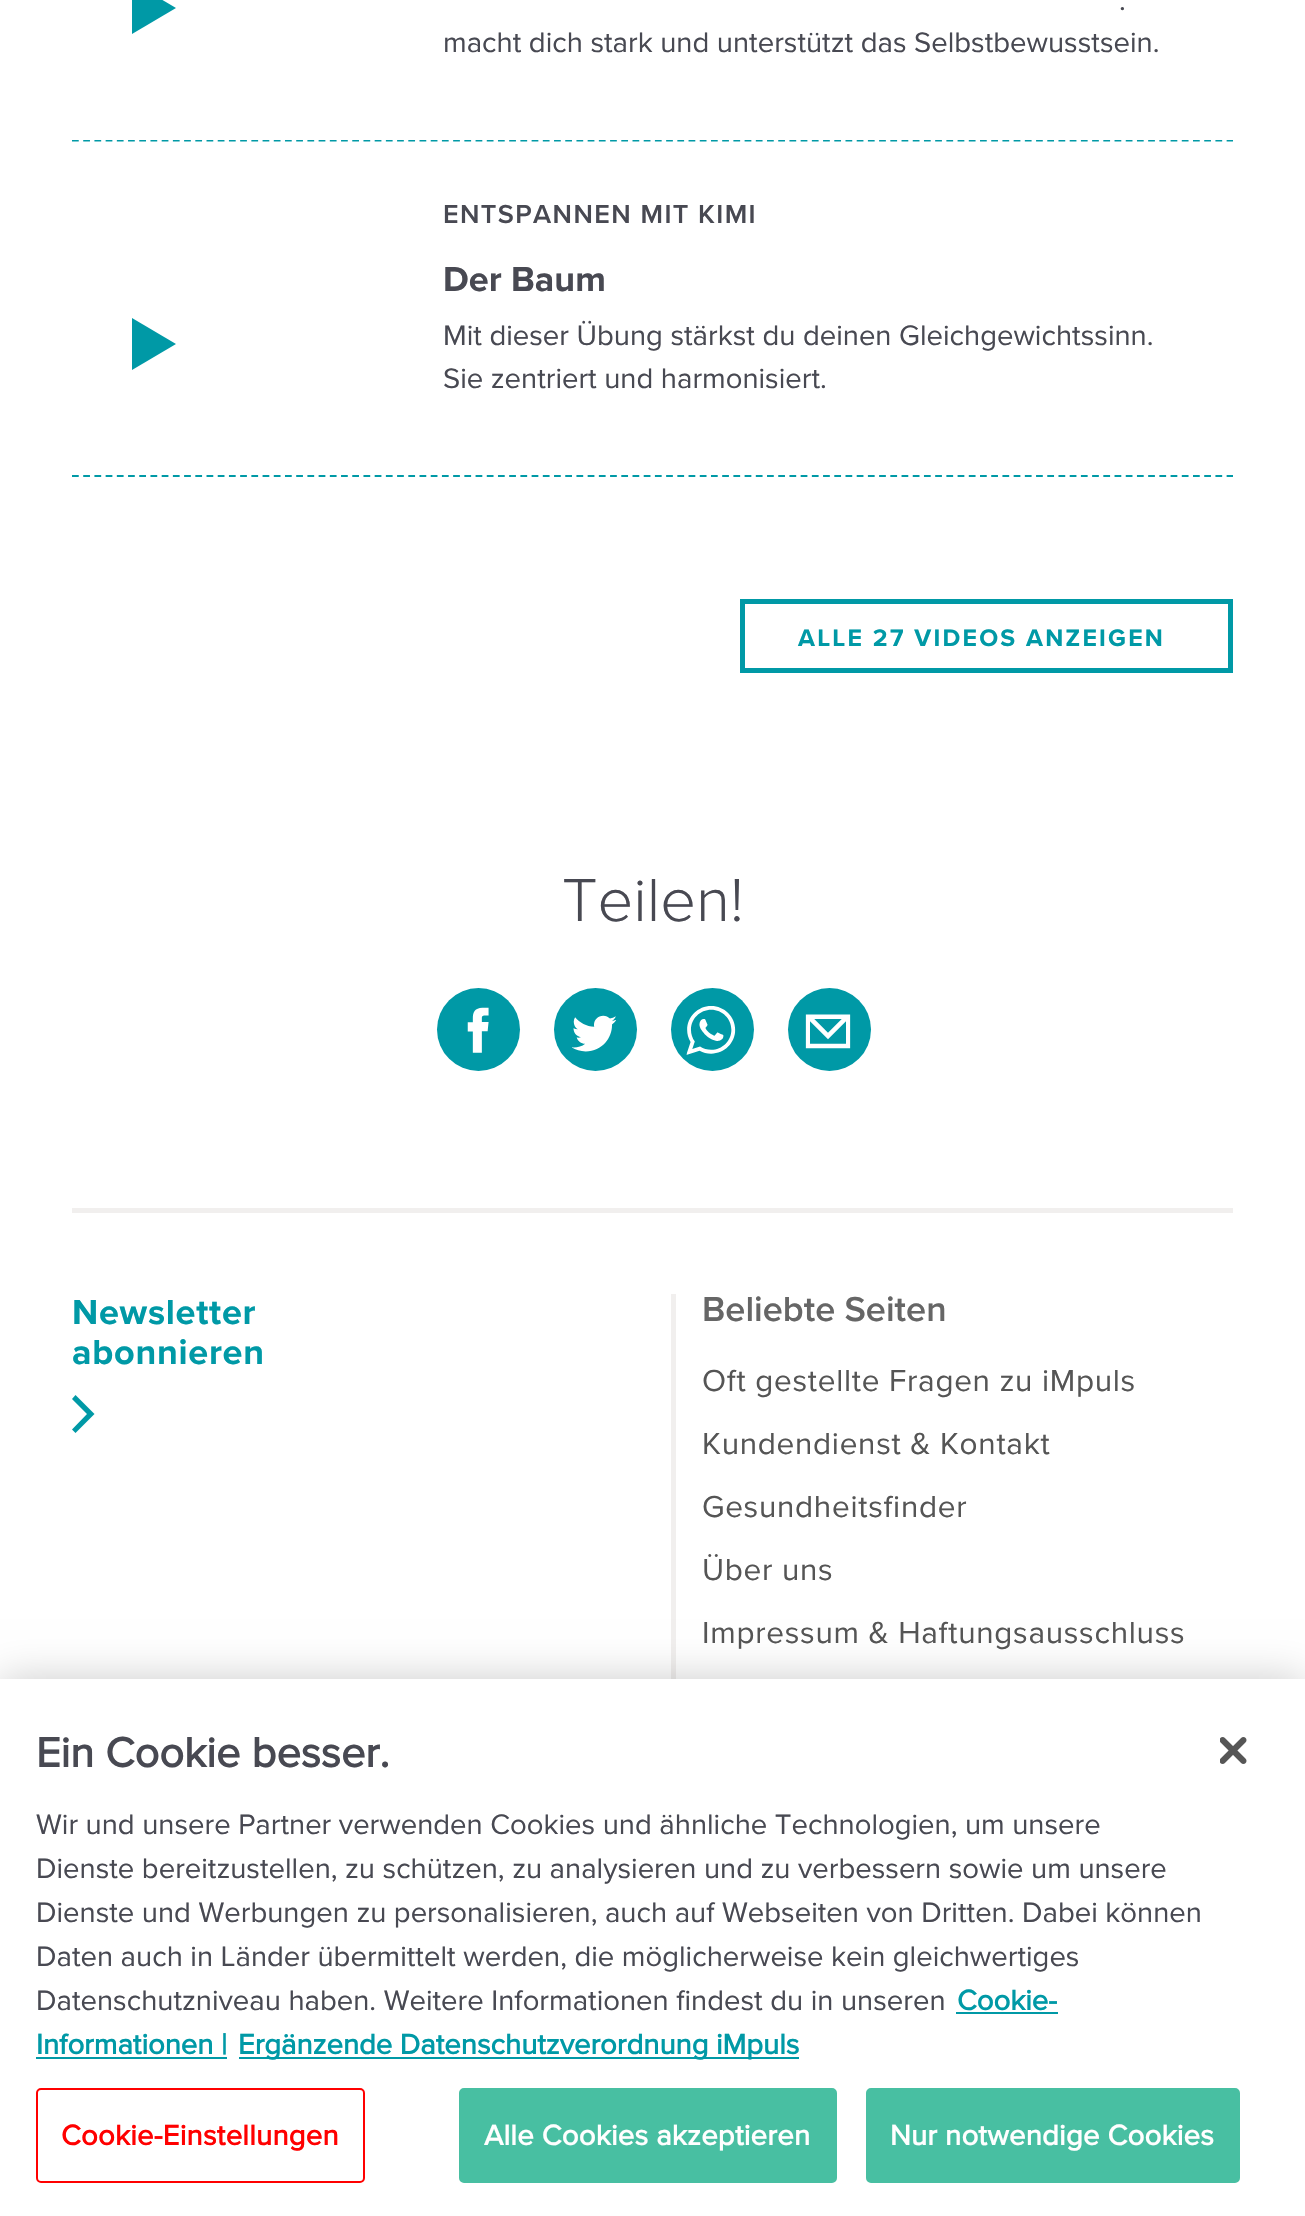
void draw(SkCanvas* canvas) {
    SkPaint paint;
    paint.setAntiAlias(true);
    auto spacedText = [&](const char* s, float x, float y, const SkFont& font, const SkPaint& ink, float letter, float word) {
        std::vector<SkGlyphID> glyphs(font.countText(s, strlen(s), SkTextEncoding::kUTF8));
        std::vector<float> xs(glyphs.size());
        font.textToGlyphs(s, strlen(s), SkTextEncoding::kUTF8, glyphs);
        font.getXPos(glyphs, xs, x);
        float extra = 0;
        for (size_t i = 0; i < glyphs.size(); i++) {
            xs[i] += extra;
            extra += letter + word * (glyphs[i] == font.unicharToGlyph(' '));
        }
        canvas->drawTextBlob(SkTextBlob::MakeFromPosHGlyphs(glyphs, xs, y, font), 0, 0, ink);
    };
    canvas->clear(0xFFFFFFFF);
    paint.setStyle(SkPaint::kStroke_Style);
    paint.setStrokeWidth(2.2f);
    paint.setColor(0xFF0099A6);
    paint.setPathEffect(SkDashPathEffect::Make({{6.75f, 4.46f}}, 0));
    canvas->drawPath(SkPathBuilder().moveTo(72, 140.5f).lineTo(1233, 140.5f).detach(), paint);
    paint.setPathEffect(nullptr);
    paint.setStyle(SkPaint::kFill_Style);
    canvas->drawPath(SkPathBuilder().moveTo(132, -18).lineTo(132, 34).lineTo(176, 8).close().detach(), paint);
    SkFont font1(fontMgr->matchFamilyStyle("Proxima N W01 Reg", SkFontStyle::Normal()), 29.25f);
    font1.setSubpixel(true);
    paint.setColor(0xFF484952);
    canvas->drawString(".", 1119, 10, font1, paint);
    canvas->drawString("macht dich stark und unterstützt das Selbstbewusstsein.", 443, 52, font1, paint);
    {
        const SkColor colors[] = {0x00FFFFFF, 0xFFFFFFFF};
        const float stops[] = {0, 0.5f};
        const SkPoint ends[] = {{653, 83}, {653, 140}};
        paint.setShader(SkGradientShader::MakeLinear(ends, colors, stops, 2, SkTileMode::kClamp));
        paint.setAlpha(255);
    }
    canvas->drawRect(SkRect::MakeXYWH(72, 139, 1161, 1), paint);
    paint.setStyle(SkPaint::kStroke_Style);
    paint.setShader(nullptr);
    paint.setColor(0xFF0099A6);
    paint.setPathEffect(SkDashPathEffect::Make({{6.75f, 4.46f}}, 0));
    canvas->drawPath(SkPathBuilder().moveTo(72, 476).lineTo(1233, 476).detach(), paint);
    paint.setPathEffect(nullptr);
    paint.setStyle(SkPaint::kFill_Style);
    canvas->drawPath(SkPathBuilder().moveTo(132, 318).lineTo(132, 370).lineTo(176, 344).close().detach(), paint);
    SkFont font2(fontMgr->matchFamilyStyle("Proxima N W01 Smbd", SkFontStyle(600, SkFontStyle::kNormal_Width, SkFontStyle::kUpright_Slant)), 27);
    font2.setSubpixel(true);
    paint.setColor(0xFF484952);
    spacedText("ENTSPANNEN MIT KIMI", 443, 223, font2, paint, 1.4f, 0);
    SkFont font3(fontMgr->matchFamilyStyle("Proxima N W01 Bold", SkFontStyle::Bold()), 36);
    font3.setSubpixel(true);
    canvas->drawString("Der Baum", 443, 291, font3, paint);
    canvas->drawString("Mit dieser Übung stärkst du deinen Gleichgewichtssinn.", 443, 345, font1, paint);
    canvas->drawString("Sie zentriert und harmonisiert.", 443, 388, font1, paint);
    {
        const SkColor colors[] = {0x00FFFFFF, 0xFFFFFFFF};
        const float stops[] = {0, 0.5f};
        const SkPoint ends[] = {{653, 418}, {653, 475}};
        paint.setShader(SkGradientShader::MakeLinear(ends, colors, stops, 2, SkTileMode::kClamp));
        paint.setAlpha(255);
    }
    canvas->drawRect(SkRect::MakeXYWH(72, 474, 1161, 1), paint);
    paint.setStyle(SkPaint::kStroke_Style);
    paint.setStrokeWidth(5);
    paint.setShader(nullptr);
    paint.setColor(0xFF0099A6);
    canvas->drawRect(SkRect::MakeXYWH(742.5f, 601.5f, 488, 69), paint);
    SkFont font4(fontMgr->matchFamilyStyle("Proxima N W01 Bold", SkFontStyle::Bold()), 24.75f);
    font4.setSubpixel(true);
    paint.setStyle(SkPaint::kFill_Style);
    spacedText("ALLE 27 VIDEOS ANZEIGEN", 798, 646, font4, paint, 2.25f, 0);
    SkFont font5(fontMgr->matchFamilyStyle("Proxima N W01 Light", SkFontStyle(300, SkFontStyle::kNormal_Width, SkFontStyle::kUpright_Slant)), 63);
    font5.setSubpixel(true);
    paint.setColor(0xFF484952);
    canvas->drawString("Teilen!", 562, 921, font5, paint);
    paint.setColor(0xFF0099A6);
    canvas->drawCircle(478.5f, 1029.5f, 41.5f, paint);
    canvas->drawImageRect(SkImages::DeferredFromEncodedData(SkData::MakeFromFileName("img1.png")), SkRect::MakeXYWH(467, 1007, 22, 46), SkSamplingOptions());
    canvas->drawCircle(595.5f, 1029.5f, 41.5f, paint);
    canvas->drawImageRect(SkImages::DeferredFromEncodedData(SkData::MakeFromFileName("img2.png")), SkRect::MakeXYWH(572, 1015, 44, 37), SkSamplingOptions());
    canvas->drawCircle(712.5f, 1029.5f, 41.5f, paint);
    canvas->drawImageRect(SkImages::DeferredFromEncodedData(SkData::MakeFromFileName("img3.png")), SkRect::MakeXYWH(686, 1006, 50, 49), SkSamplingOptions());
    canvas->drawCircle(829.5f, 1029.5f, 41.5f, paint);
    canvas->drawImageRect(SkImages::DeferredFromEncodedData(SkData::MakeFromFileName("img4.png")), SkRect::MakeXYWH(805, 1014, 46, 35), SkSamplingOptions());
    paint.setColor(0xFFF1EFEE);
    canvas->drawRect(SkRect::MakeXYWH(72, 1208, 1161, 5), paint);
    paint.setColor(0xFF0099A6);
    spacedText("Newsletter", 72, 1324, font3, paint, 0.7f, 0);
    spacedText("abonnieren", 72, 1364, font3, paint, 0.7f, 0);
    canvas->drawPath(SkPathBuilder(SkPathFillType::kEvenOdd).moveTo(75.5f, 1395).lineTo(72, 1399).lineTo(87, 1414).lineTo(72, 1429.5f).lineTo(75.5f, 1433).lineTo(94.5f, 1414).close().detach(), paint);
    paint.setColor(0xFFF1EFEE);
    canvas->drawRect(SkRect::MakeXYWH(671, 1294, 5, 385), paint);
    SkFont font6(fontMgr->matchFamilyStyle("Proxima N W01 Smbd", SkFontStyle(600, SkFontStyle::kNormal_Width, SkFontStyle::kUpright_Slant)), 36);
    font6.setSubpixel(true);
    paint.setColor(0xFF666666);
    canvas->drawString("Beliebte Seiten", 702, 1321, font6, paint);
    SkFont font7(fontMgr->matchFamilyStyle("Proxima N W01 Reg", SkFontStyle::Normal()), 31.5f);
    font7.setSubpixel(true);
    paint.setColor(0xFF555555);
    spacedText("Oft gestellte Fragen zu iMpuls", 702, 1391, font7, paint, 0.7f, 0);
    spacedText("Kundendienst & Kontakt", 702, 1454, font7, paint, 0.7f, 0);
    spacedText("Gesundheitsfinder", 702, 1517, font7, paint, 0.7f, 0);
    spacedText("Über uns", 702, 1580, font7, paint, 0.7f, 0);
    spacedText("Impressum & Haftungsausschluss", 702, 1643, font7, paint, 0.7f, 0);
    paint.setColor(0x33000000);
    paint.setMaskFilter(SkMaskFilter::MakeBlur(kNormal_SkBlurStyle, 20));
    canvas->drawRect(SkRect::MakeXYWH(0, 1679, 1305, 537), paint);
    paint.setMaskFilter(nullptr);
    paint.setColor(0xFFFFFFFF);
    canvas->drawRect(SkRect::MakeXYWH(0, 1679, 1305, 537), paint);
    SkFont font8(fontMgr->matchFamilyStyle("Proxima N W01 Reg", SkFontStyle::Bold()), 43.25f);
    font8.setSubpixel(true);
    paint.setColor(0xFF484952);
    canvas->drawString("Ein Cookie besser.", 36, 1767, font8, paint);
    canvas->drawString("Wir und unsere Partner verwenden Cookies und ähnliche Technologien, um unsere", 36, 1834, font1, paint);
    canvas->drawString("Dienste bereitzustellen, zu schützen, zu analysieren und zu verbessern sowie um unsere", 36, 1878, font1, paint);
    canvas->drawString("Dienste und Werbungen zu personalisieren, auch auf Webseiten von Dritten. Dabei können", 36, 1922, font1, paint);
    canvas->drawString("Daten auch in Länder übermittelt werden, die möglicherweise kein gleichwertiges", 36, 1966, font1, paint);
    canvas->drawString("Datenschutzniveau haben. Weitere Informationen findest du in unseren", 36, 2010, font1, paint);
    SkFont font9(fontMgr->matchFamilyStyle("Proxima N W01 Reg", SkFontStyle::Bold()), 29.25f);
    font9.setSubpixel(true);
    paint.setColor(0xFF0099A6);
    canvas->drawString("Cookie-", 957, 2010, font9, paint);
    canvas->drawRect(SkRect::MakeXYWH(956, 2012, 102, 2), paint);
    canvas->drawString("Informationen |", 36, 2054, font9, paint);
    canvas->drawRect(SkRect::MakeXYWH(36, 2057, 191, 2), paint);
    canvas->drawRect(SkRect::MakeXYWH(239, 2057, 560, 2), paint);
    canvas->drawString("Ergänzende Datenschutzverordnung iMpuls", 238, 2054, font9, paint);
    paint.setStyle(SkPaint::kStroke_Style);
    paint.setStrokeWidth(2);
    paint.setColor(0xFFFF0000);
    canvas->drawRoundRect(SkRect::MakeXYWH(37, 2089, 327, 93), 4, 4, paint);
    paint.setStyle(SkPaint::kFill_Style);
    spacedText("Cookie-Einstellungen", 61, 2145, font9, paint, 0.25f, 0);
    paint.setColor(0xFF48BFA2);
    canvas->drawRoundRect(SkRect::MakeXYWH(460, 2089, 376, 93), 4, 4, paint);
    paint.setStyle(SkPaint::kStroke_Style);
    canvas->drawRoundRect(SkRect::MakeXYWH(460, 2089, 376, 93), 4, 4, paint);
    paint.setStyle(SkPaint::kFill_Style);
    paint.setColor(0xFFFFFFFF);
    spacedText("Alle Cookies akzeptieren", 484, 2145, font9, paint, 0.25f, 0);
    paint.setColor(0xFF48BFA2);
    canvas->drawRoundRect(SkRect::MakeXYWH(867, 2089, 372, 93), 4, 4, paint);
    paint.setStyle(SkPaint::kStroke_Style);
    canvas->drawRoundRect(SkRect::MakeXYWH(867, 2089, 372, 93), 4, 4, paint);
    paint.setStyle(SkPaint::kFill_Style);
    paint.setColor(0xFFFFFFFF);
    spacedText("Nur notwendige Cookies", 890, 2145, font9, paint, 0.25f, 0);
    canvas->drawImageRect(SkImages::DeferredFromEncodedData(SkData::MakeFromFileName("img5.png")), SkRect::MakeXYWH(1220, 1737, 27, 27), SkSamplingOptions());
}
